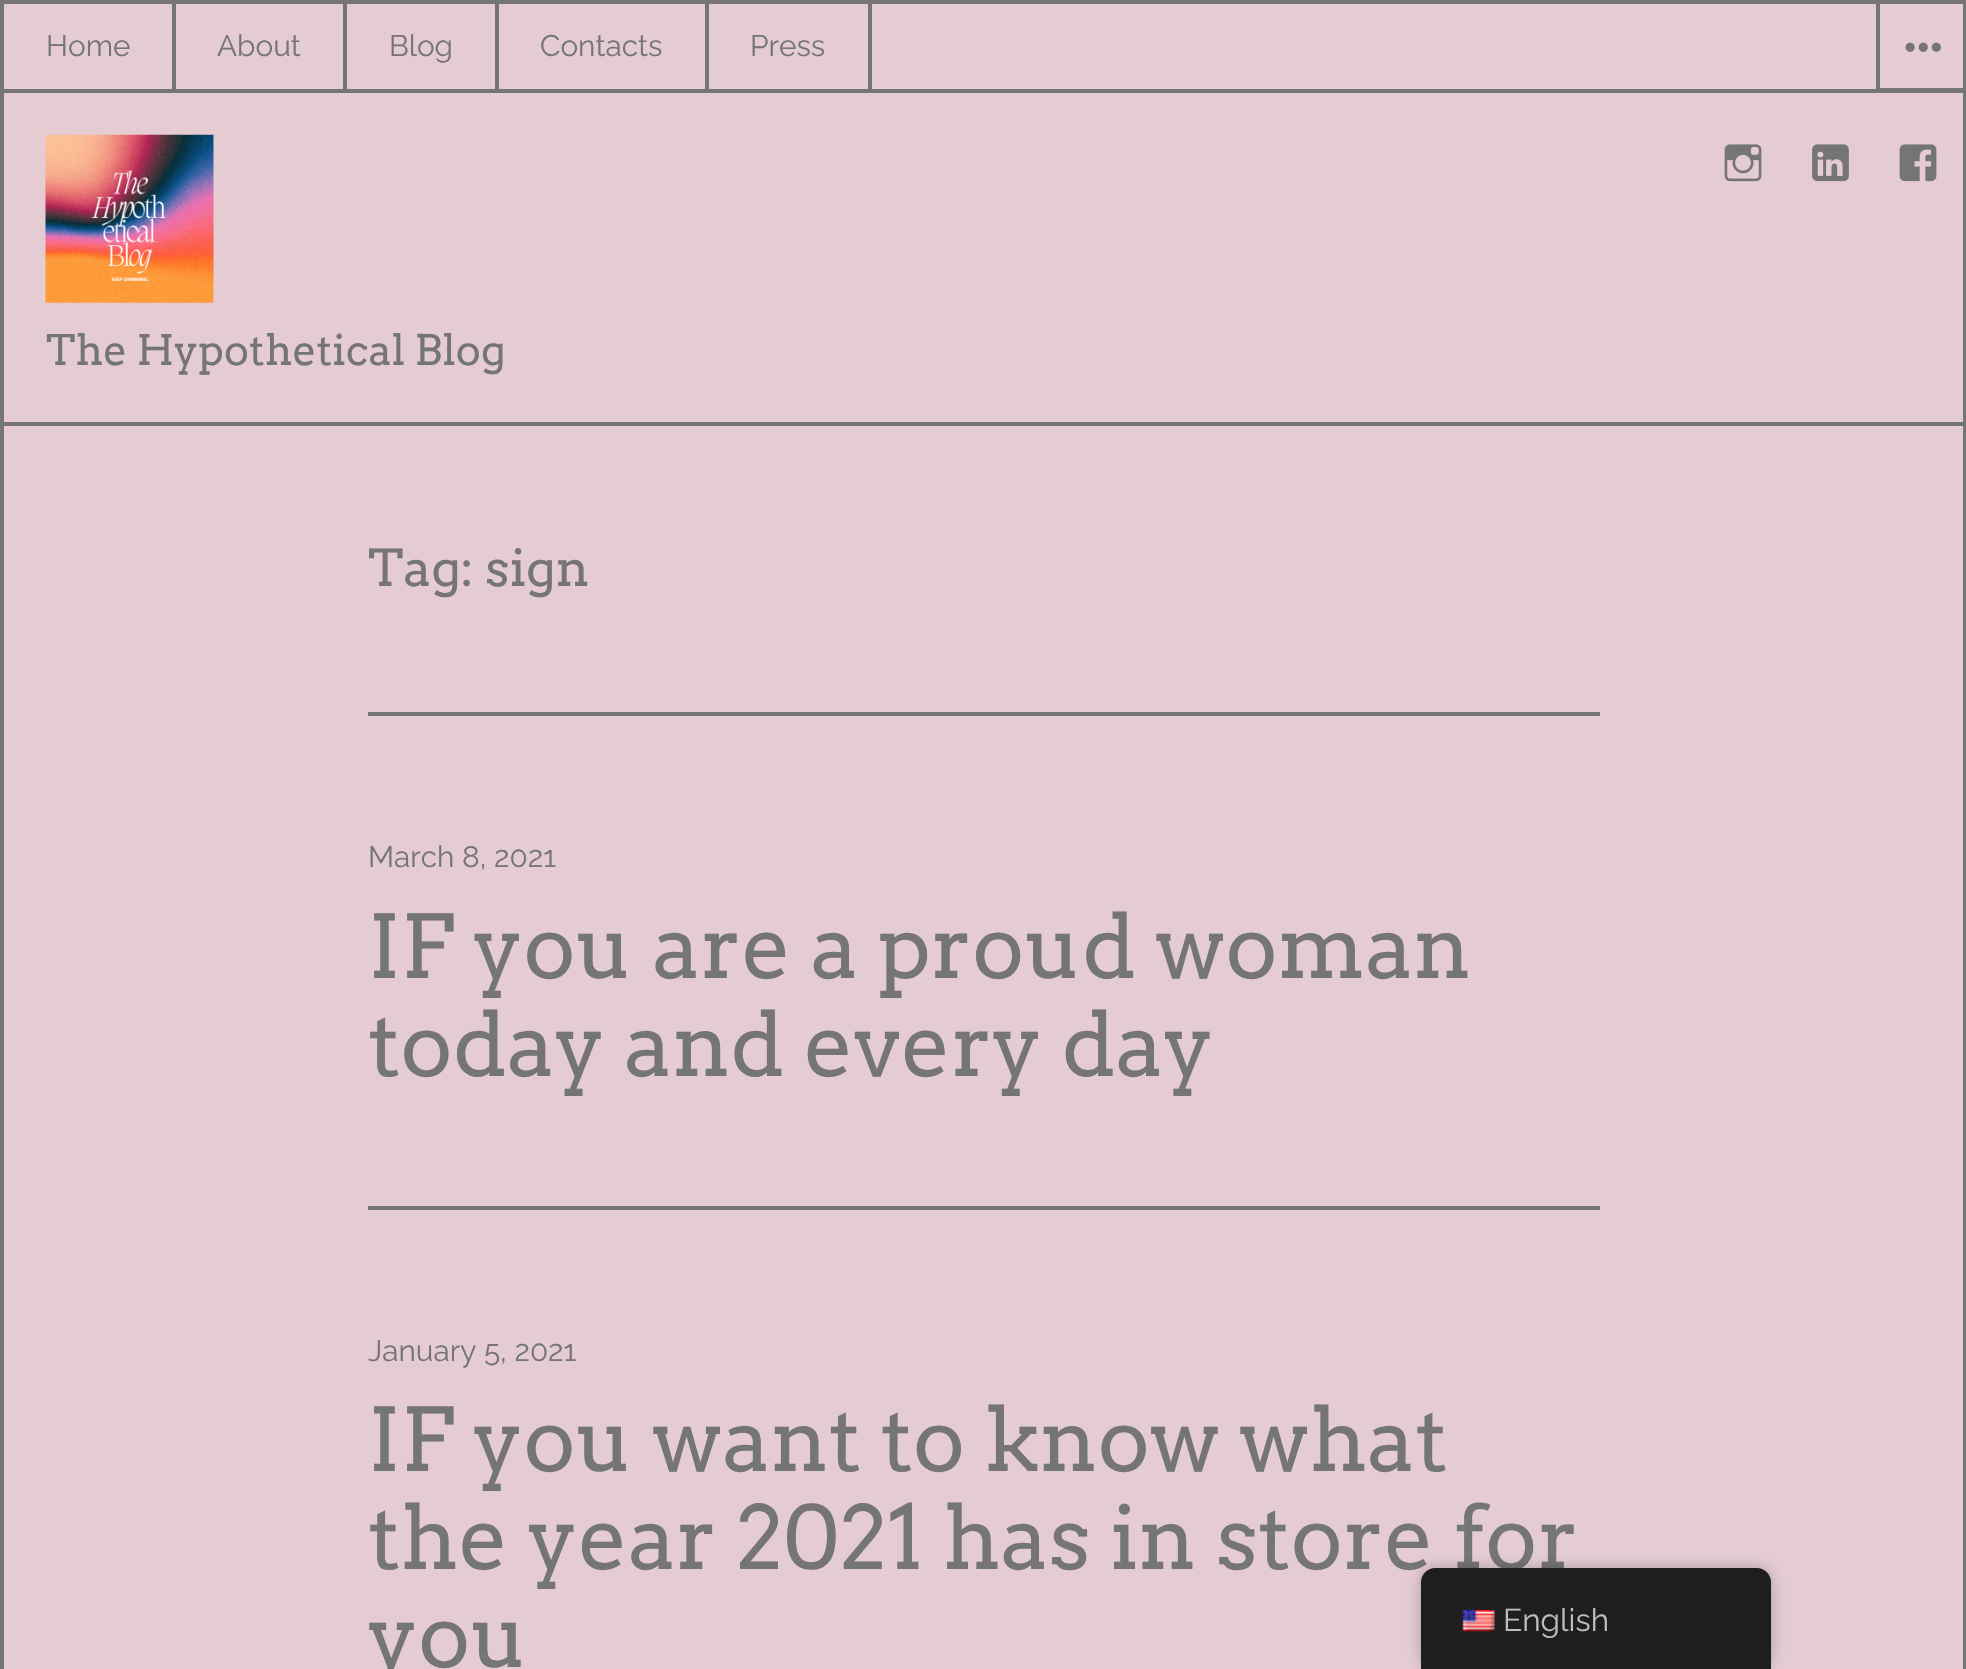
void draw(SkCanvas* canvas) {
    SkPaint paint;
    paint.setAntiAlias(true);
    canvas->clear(0xFFE4CCD2);
    paint.setStyle(SkPaint::kStroke_Style);
    paint.setStrokeWidth(4);
    paint.setColor(0xFF757575);
    canvas->drawRect(SkRect::MakeXYWH(2, 2, 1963, 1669), paint);
    paint.setStyle(SkPaint::kFill_Style);
    canvas->drawRect(SkRect::MakeXYWH(4, 422, 1960, 4), paint);
    canvas->drawRect(SkRect::MakeXYWH(4, 89, 1960, 4), paint);
    canvas->drawRect(SkRect::MakeXYWH(172, 4, 4, 89), paint);
    SkFont font1(fontMgr->matchFamilyStyle("Raleway", SkFontStyle::Normal()), 29.75f);
    font1.setSubpixel(true);
    canvas->drawString("Home", 46, 56, font1, paint);
    canvas->drawRect(SkRect::MakeXYWH(343, 4, 4, 89), paint);
    canvas->drawString("About", 217, 56, font1, paint);
    canvas->drawRect(SkRect::MakeXYWH(495, 4, 4, 89), paint);
    canvas->drawString("Blog", 389, 56, font1, paint);
    canvas->drawRect(SkRect::MakeXYWH(705, 4, 4, 89), paint);
    canvas->drawString("Contacts", 540, 56, font1, paint);
    canvas->drawRect(SkRect::MakeXYWH(868, 4, 4, 89), paint);
    canvas->drawString("Press", 750, 56, font1, paint);
    canvas->drawRect(SkRect::MakeXYWH(1876, 88, 88, 1), paint);
    canvas->drawRect(SkRect::MakeXYWH(1876, 4, 4, 87), paint);
    canvas->drawImageRect(SkImages::DeferredFromEncodedData(SkData::MakeFromFileName("img1.png")), SkRect::MakeXYWH(1905, 42, 36, 10), SkSamplingOptions());
    canvas->drawImageRect(SkImages::DeferredFromEncodedData(SkData::MakeFromFileName("img2.png")), SkRect::MakeXYWH(1724, 144, 38, 38), SkSamplingOptions());
    canvas->drawImageRect(SkImages::DeferredFromEncodedData(SkData::MakeFromFileName("img3.png")), SkRect::MakeXYWH(1812, 144, 37, 38), SkSamplingOptions());
    canvas->drawImageRect(SkImages::DeferredFromEncodedData(SkData::MakeFromFileName("img4.png")), SkRect::MakeXYWH(1899, 144, 38, 38), SkSamplingOptions());
    canvas->drawImageRect(SkImages::DeferredFromEncodedData(SkData::MakeFromFileName("img5.png")), SkRect::MakeXYWH(45, 134, 169, 169), SkSamplingOptions());
    SkFont font2(fontMgr->matchFamilyStyle("Arvo", SkFontStyle::Normal()), 42);
    font2.setSubpixel(true);
    canvas->drawString("The Hypothetical Blog", 46, 365, font2, paint);
    canvas->drawRect(SkRect::MakeXYWH(368, 712, 1232, 4), paint);
    SkFont font3(fontMgr->matchFamilyStyle("Arvo", SkFontStyle::Normal()), 50.75f);
    font3.setSubpixel(true);
    canvas->drawString("Tag: sign", 368, 586, font3, paint);
    canvas->drawString("March 8, 2021", 368, 867, font1, paint);
    SkFont font4(fontMgr->matchFamilyStyle("Arvo", SkFontStyle::Normal()), 87.5f);
    font4.setSubpixel(true);
    canvas->drawString("IF you are a proud woman", 368, 978, font4, paint);
    canvas->drawString("today and every day", 368, 1076, font4, paint);
    canvas->drawRect(SkRect::MakeXYWH(368, 1206, 1232, 4), paint);
    canvas->drawString("January 5, 2021", 368, 1361, font1, paint);
    canvas->drawString("IF you want to know what", 368, 1471, font4, paint);
    canvas->drawString("the year 2021 has in store for", 368, 1569, font4, paint);
    canvas->drawString("you", 368, 1667, font4, paint);
    paint.setColor(0x40000000);
    paint.setMaskFilter(SkMaskFilter::MakeBlur(kNormal_SkBlurStyle, 7));
    canvas->drawRoundRect(SkRect::MakeXYWH(1421, 1568, 350, 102), 14, 14, paint);
    paint.setMaskFilter(nullptr);
    paint.setColor(0xFF1E1E1E);
    canvas->drawPath(SkPathBuilder().moveTo(1435, 1568).lineTo(1757, 1568).cubicTo(1764.5f, 1568, 1771, 1574.5f, 1771, 1582).lineTo(1771, 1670).lineTo(1421, 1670).lineTo(1421, 1582).cubicTo(1421, 1574.5f, 1427.5f, 1568, 1435, 1568).close().detach(), paint);
    canvas->drawImageRect(SkImages::DeferredFromEncodedData(SkData::MakeFromFileName("img6.png")), SkRect::MakeXYWH(1462, 1610, 33, 22), SkSamplingOptions());
    SkFont font5(fontMgr->matchFamilyStyle("Raleway", SkFontStyle::Normal()), 31.5f);
    font5.setSubpixel(true);
    paint.setColor(0xFFBDBDBD);
    canvas->drawString("English", 1503, 1631, font5, paint);
}
